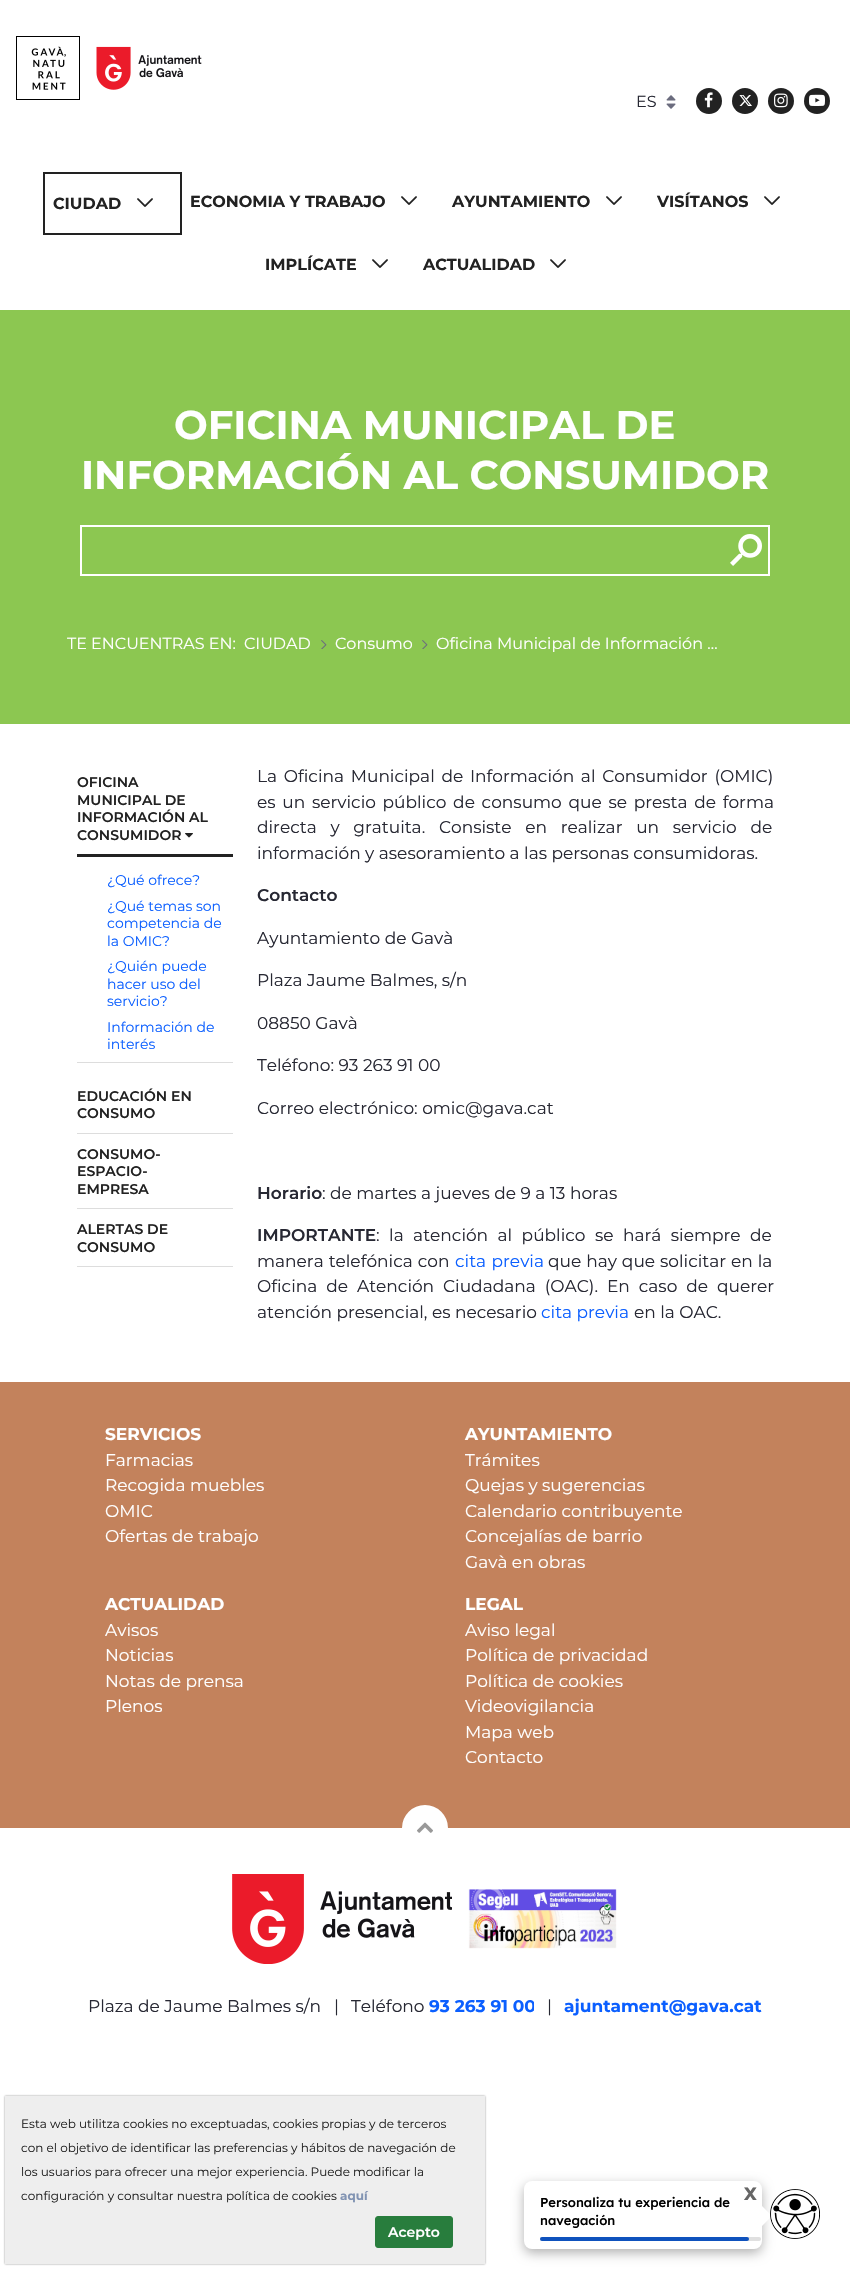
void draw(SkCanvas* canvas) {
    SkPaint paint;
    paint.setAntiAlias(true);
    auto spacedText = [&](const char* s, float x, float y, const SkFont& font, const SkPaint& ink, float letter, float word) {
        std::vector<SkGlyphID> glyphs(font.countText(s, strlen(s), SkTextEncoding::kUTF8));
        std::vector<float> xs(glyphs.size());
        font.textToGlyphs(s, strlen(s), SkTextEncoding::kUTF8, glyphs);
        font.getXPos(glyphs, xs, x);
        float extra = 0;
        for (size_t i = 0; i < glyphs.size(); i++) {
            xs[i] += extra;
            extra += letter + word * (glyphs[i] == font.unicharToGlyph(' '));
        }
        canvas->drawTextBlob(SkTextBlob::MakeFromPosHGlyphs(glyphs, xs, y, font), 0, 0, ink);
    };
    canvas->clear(0xFFFFFFFF);
    canvas->drawImageRect(SkImages::DeferredFromEncodedData(SkData::MakeFromFileName("img1.png")), SkRect::MakeXYWH(16, 36, 186, 64), SkSamplingOptions());
    canvas->drawImageRect(SkImages::DeferredFromEncodedData(SkData::MakeFromFileName("img2.png")), SkRect::MakeXYWH(666, 95, 10, 14), SkSamplingOptions());
    SkFont font1(fontMgr->matchFamilyStyle("Montserrat", SkFontStyle::Normal()), 16);
    font1.setSubpixel(true);
    paint.setColor(0xFF272833);
    canvas->drawString("ES", 636, 107, font1, paint);
    paint.setColor(0xFF222222);
    canvas->drawCircle(709, 101, 13, paint);
    canvas->drawImageRect(SkImages::DeferredFromEncodedData(SkData::MakeFromFileName("img3.png")), SkRect::MakeXYWH(704, 92, 9, 16), SkSamplingOptions());
    canvas->drawCircle(745, 101, 13, paint);
    canvas->drawImageRect(SkImages::DeferredFromEncodedData(SkData::MakeFromFileName("img4.png")), SkRect::MakeXYWH(739, 95, 13, 11), SkSamplingOptions());
    canvas->drawCircle(781, 101, 13, paint);
    canvas->drawImageRect(SkImages::DeferredFromEncodedData(SkData::MakeFromFileName("img5.png")), SkRect::MakeXYWH(774, 93, 14, 15), SkSamplingOptions());
    canvas->drawCircle(817, 101, 13, paint);
    canvas->drawImageRect(SkImages::DeferredFromEncodedData(SkData::MakeFromFileName("img6.png")), SkRect::MakeXYWH(809, 94, 16, 12), SkSamplingOptions());
    paint.setStyle(SkPaint::kStroke_Style);
    paint.setStrokeWidth(2);
    canvas->drawRect(SkRect::MakeXYWH(44, 173, 137, 61), paint);
    SkFont font2(fontMgr->matchFamilyStyle("Montserrat", SkFontStyle::Bold()), 16);
    font2.setSubpixel(true);
    paint.setStyle(SkPaint::kFill_Style);
    canvas->drawString("CIUDAD", 53, 209, font2, paint);
    canvas->drawImageRect(SkImages::DeferredFromEncodedData(SkData::MakeFromFileName("img7.png")), SkRect::MakeXYWH(137, 198, 16, 9), SkSamplingOptions());
    canvas->drawString("ECONOMIA Y TRABAJO", 190, 207, font2, paint);
    canvas->drawImageRect(SkImages::DeferredFromEncodedData(SkData::MakeFromFileName("img7.png")), SkRect::MakeXYWH(401, 196, 16, 9), SkSamplingOptions());
    canvas->drawString("AYUNTAMIENTO", 452, 207, font2, paint);
    canvas->drawImageRect(SkImages::DeferredFromEncodedData(SkData::MakeFromFileName("img7.png")), SkRect::MakeXYWH(606, 196, 16, 9), SkSamplingOptions());
    canvas->drawString("VISÍTANOS", 657, 207, font2, paint);
    canvas->drawImageRect(SkImages::DeferredFromEncodedData(SkData::MakeFromFileName("img7.png")), SkRect::MakeXYWH(764, 196, 16, 9), SkSamplingOptions());
    canvas->drawString("IMPLÍCATE", 265, 270, font2, paint);
    canvas->drawImageRect(SkImages::DeferredFromEncodedData(SkData::MakeFromFileName("img7.png")), SkRect::MakeXYWH(372, 259, 16, 9), SkSamplingOptions());
    canvas->drawString("ACTUALIDAD", 423, 270, font2, paint);
    canvas->drawImageRect(SkImages::DeferredFromEncodedData(SkData::MakeFromFileName("img7.png")), SkRect::MakeXYWH(550, 259, 16, 9), SkSamplingOptions());
    paint.setColor(0xFF8CC751);
    canvas->drawRect(SkRect::MakeXYWH(0, 310, 850, 414), paint);
    SkFont font3(fontMgr->matchFamilyStyle("Montserrat", SkFontStyle::Bold()), 40);
    font3.setSubpixel(true);
    paint.setColor(0xFFFFFFFF);
    canvas->drawString("OFICINA MUNICIPAL DE", 174, 439, font3, paint);
    canvas->drawString("INFORMACIÓN AL CONSUMIDOR", 81, 489, font3, paint);
    paint.setStyle(SkPaint::kStroke_Style);
    canvas->drawRect(SkRect::MakeXYWH(81, 526, 688, 49), paint);
    canvas->drawImageRect(SkImages::DeferredFromEncodedData(SkData::MakeFromFileName("img8.png")), SkRect::MakeXYWH(730, 534, 32, 32), SkSamplingOptions());
    paint.setStyle(SkPaint::kFill_Style);
    canvas->drawString("TE ENCUENTRAS EN:", 67, 649, font1, paint);
    canvas->drawString("CIUDAD", 244, 649, font1, paint);
    canvas->drawImageRect(SkImages::DeferredFromEncodedData(SkData::MakeFromFileName("img9.png")), SkRect::MakeXYWH(321, 640, 6, 9), SkSamplingOptions());
    canvas->drawString("Consumo", 335, 649, font1, paint);
    canvas->drawImageRect(SkImages::DeferredFromEncodedData(SkData::MakeFromFileName("img9.png")), SkRect::MakeXYWH(422, 640, 6, 9), SkSamplingOptions());
    canvas->drawString("Oficina Municipal de Información …", 436, 649, font1, paint);
    paint.setColor(0xFF222222);
    canvas->drawRect(SkRect::MakeXYWH(77, 854, 156, 3), paint);
    SkFont font4(fontMgr->matchFamilyStyle("Montserrat", SkFontStyle(600, SkFontStyle::kNormal_Width, SkFontStyle::kUpright_Slant)), 14);
    font4.setSubpixel(true);
    canvas->drawString("OFICINA", 77, 787, font4, paint);
    canvas->drawString("MUNICIPAL DE", 77, 805, font4, paint);
    canvas->drawString("INFORMACIÓN AL", 77, 822, font4, paint);
    canvas->drawString("CONSUMIDOR", 77, 840, font4, paint);
    canvas->drawImageRect(SkImages::DeferredFromEncodedData(SkData::MakeFromFileName("img10.png")), SkRect::MakeXYWH(185, 833, 8, 5), SkSamplingOptions());
    paint.setColor(0xFFDDDDDD);
    canvas->drawRect(SkRect::MakeXYWH(77, 1062, 156, 1), paint);
    SkFont font5(fontMgr->matchFamilyStyle("Montserrat", SkFontStyle::Normal()), 14);
    font5.setSubpixel(true);
    paint.setColor(0xFF0B5FFF);
    canvas->drawString("¿Qué ofrece?", 107, 885, font5, paint);
    canvas->drawString("¿Qué temas son", 107, 911, font5, paint);
    canvas->drawString("competencia de", 107, 928, font5, paint);
    canvas->drawString("la OMIC?", 107, 946, font5, paint);
    canvas->drawString("¿Quién puede", 107, 971, font5, paint);
    canvas->drawString("hacer uso del", 107, 989, font5, paint);
    canvas->drawString("servicio?", 107, 1006, font5, paint);
    canvas->drawString("Información de", 107, 1032, font5, paint);
    canvas->drawString("interés", 107, 1049, font5, paint);
    paint.setColor(0xFFDDDDDD);
    canvas->drawRect(SkRect::MakeXYWH(77, 1133, 156, 1), paint);
    paint.setColor(0xFF222222);
    canvas->drawString("EDUCACIÓN EN", 77, 1101, font4, paint);
    canvas->drawString("CONSUMO", 77, 1118, font4, paint);
    paint.setColor(0xFFDDDDDD);
    canvas->drawRect(SkRect::MakeXYWH(77, 1208, 156, 1), paint);
    paint.setColor(0xFF222222);
    canvas->drawString("CONSUMO-", 77, 1159, font4, paint);
    canvas->drawString("ESPACIO-", 77, 1176, font4, paint);
    canvas->drawString("EMPRESA", 77, 1194, font4, paint);
    paint.setColor(0xFFDDDDDD);
    canvas->drawRect(SkRect::MakeXYWH(77, 1266, 156, 1), paint);
    paint.setColor(0xFF222222);
    canvas->drawString("ALERTAS DE", 77, 1234, font4, paint);
    canvas->drawString("CONSUMO", 77, 1252, font4, paint);
    SkFont font6(fontMgr->matchFamilyStyle("Montserrat", SkFontStyle::Normal()), 17);
    font6.setSubpixel(true);
    paint.setColor(0xFF272833);
    spacedText("La Oficina Municipal de Información al Consumidor (OMIC)", 257, 782, font6, paint, 0, 2.25f);
    spacedText("es un servicio público de consumo que se presta de forma", 257, 808, font6, paint, 0, 2.25f);
    spacedText("directa y gratuita. Consiste en realizar un servicio de", 257, 833, font6, paint, 0, 9.25f);
    canvas->drawString("información y asesoramiento a las personas consumidoras.", 257, 859, font6, paint);
    SkFont font7(fontMgr->matchFamilyStyle("Montserrat", SkFontStyle(600, SkFontStyle::kNormal_Width, SkFontStyle::kUpright_Slant)), 17);
    font7.setSubpixel(true);
    canvas->drawString("Contacto", 257, 901, font7, paint);
    canvas->drawString("Ayuntamiento de Gavà", 257, 944, font6, paint);
    canvas->drawString("Plaza Jaume Balmes, s/n", 257, 986, font6, paint);
    canvas->drawString("08850 Gavà", 257, 1029, font6, paint);
    canvas->drawString("Teléfono: 93 263 91 00", 257, 1071, font6, paint);
    canvas->drawString("Correo electrónico: omic@gava.cat", 257, 1114, font6, paint);
    canvas->drawString("Horario", 257, 1199, font7, paint);
    canvas->drawString(": de martes a jueves de 9 a 13 horas", 322, 1199, font6, paint);
    canvas->drawString("IMPORTANTE", 257, 1241, font7, paint);
    spacedText(": la atención al público se hará siempre de", 376, 1241, font6, paint, 0, 5);
    spacedText("manera telefónica con", 257, 1267, font6, paint, 0, 0.5f);
    paint.setColor(0xFF0B5FFF);
    spacedText("cita previa", 455, 1267, font6, paint, 0, 1);
    paint.setColor(0xFF272833);
    spacedText("que hay que solicitar en la", 548, 1267, font6, paint, 0, 0.5f);
    spacedText("Oficina de Atención Ciudadana (OAC). En caso de querer", 257, 1292, font6, paint, 0, 4.5f);
    canvas->drawString("atención presencial, es necesario", 257, 1318, font6, paint);
    paint.setColor(0xFF0B5FFF);
    canvas->drawString("cita previa", 541, 1318, font6, paint);
    paint.setColor(0xFF272833);
    canvas->drawString("en la OAC.", 634, 1318, font6, paint);
    paint.setColor(0xFFC3825C);
    canvas->drawRect(SkRect::MakeXYWH(0, 1382, 850, 446), paint);
    SkFont font8(fontMgr->matchFamilyStyle("Montserrat", SkFontStyle::Bold()), 17);
    font8.setSubpixel(true);
    paint.setColor(0xFFFFFFFF);
    canvas->drawString("SERVICIOS", 105, 1440, font8, paint);
    canvas->drawString("Farmacias", 105, 1466, font6, paint);
    canvas->drawString("Recogida muebles", 105, 1491, font6, paint);
    canvas->drawString("OMIC", 105, 1517, font6, paint);
    canvas->drawString("Ofertas de trabajo", 105, 1542, font6, paint);
    canvas->drawString("AYUNTAMIENTO", 465, 1440, font8, paint);
    canvas->drawString("Trámites", 465, 1466, font6, paint);
    canvas->drawString("Quejas y sugerencias", 465, 1491, font6, paint);
    canvas->drawString("Calendario contribuyente", 465, 1517, font6, paint);
    canvas->drawString("Concejalías de barrio", 465, 1542, font6, paint);
    canvas->drawString("Gavà en obras", 465, 1568, font6, paint);
    canvas->drawString("ACTUALIDAD", 105, 1610, font8, paint);
    canvas->drawString("Avisos", 105, 1636, font6, paint);
    canvas->drawString("Noticias", 105, 1661, font6, paint);
    canvas->drawString("Notas de prensa", 105, 1687, font6, paint);
    canvas->drawString("Plenos", 105, 1712, font6, paint);
    canvas->drawString("LEGAL", 465, 1610, font8, paint);
    canvas->drawString("Aviso legal", 465, 1636, font6, paint);
    canvas->drawString("Política de privacidad", 465, 1661, font6, paint);
    canvas->drawString("Política de cookies", 465, 1687, font6, paint);
    canvas->drawString("Videovigilancia", 465, 1712, font6, paint);
    canvas->drawString("Mapa web", 465, 1738, font6, paint);
    canvas->drawString("Contacto", 465, 1763, font6, paint);
    canvas->drawCircle(425, 1828, 21.5f, paint);
    paint.setStyle(SkPaint::kStroke_Style);
    paint.setStrokeWidth(3);
    canvas->drawCircle(425, 1828, 21.5f, paint);
    canvas->drawImageRect(SkImages::DeferredFromEncodedData(SkData::MakeFromFileName("img11.png")), SkRect::MakeXYWH(417, 1822, 16, 11), SkSamplingOptions());
    canvas->drawImageRect(SkImages::DeferredFromEncodedData(SkData::MakeFromFileName("img12.png")), SkRect::MakeXYWH(232, 1874, 220, 90), SkSamplingOptions());
    canvas->drawImageRect(SkImages::DeferredFromEncodedData(SkData::MakeFromFileName("img13.png")), SkRect::MakeXYWH(468, 1889, 149, 60), SkSamplingOptions());
    paint.setStyle(SkPaint::kFill_Style);
    paint.setColor(0xFF272833);
    canvas->drawString("Plaza de Jaume Balmes s/n", 88, 2012, font6, paint);
    canvas->drawString("|", 334, 2012, font6, paint);
    canvas->drawString("Teléfono", 351, 2012, font6, paint);
    canvas->save();
    canvas->clipRect(SkRect::MakeXYWH(351, 1994, 183, 25));
    paint.setColor(0xFF0B5FFF);
    canvas->drawString("93 263 91 00", 429, 2012, font8, paint);
    canvas->restore();
    paint.setColor(0xFF272833);
    canvas->drawString("|", 547, 2012, font6, paint);
    paint.setColor(0xFF0B5FFF);
    canvas->drawString("ajuntament@gava.cat", 564, 2012, font8, paint);
    paint.setColor(0x80222222);
    paint.setMaskFilter(SkMaskFilter::MakeBlur(kNormal_SkBlurStyle, 1));
    canvas->drawRect(SkRect::MakeXYWH(5, 2096, 480, 168), paint);
    paint.setMaskFilter(nullptr);
    paint.setColor(0xFFEEEEEE);
    canvas->drawRect(SkRect::MakeXYWH(5, 2096, 480, 168), paint);
    SkFont font9(fontMgr->matchFamilyStyle("Montserrat", SkFontStyle::Normal()), 12);
    font9.setSubpixel(true);
    paint.setColor(0xFF222222);
    canvas->drawString("Esta web utilitza cookies no exceptuadas, cookies propias y de terceros", 21, 2128, font9, paint);
    canvas->drawString("con el objetivo de identificar las preferencias y hábitos de navegación de", 21, 2152, font9, paint);
    canvas->drawString("los usuarios para ofrecer una mejor experiencia. Puede modificar la", 21, 2176, font9, paint);
    canvas->drawString("configuración y consultar nuestra política de cookies", 21, 2200, font9, paint);
    SkFont font10(fontMgr->matchFamilyStyle("Montserrat", SkFontStyle::Bold()), 12);
    font10.setSubpixel(true);
    paint.setColor(0xFF8294B3);
    canvas->drawString("aquí", 340, 2200, font10, paint);
    paint.setColor(0xFF287D3D);
    canvas->drawRoundRect(SkRect::MakeXYWH(375.5f, 2216.5f, 77, 31), 2.5f, 2.5f, paint);
    paint.setStyle(SkPaint::kStroke_Style);
    paint.setStrokeWidth(1);
    canvas->drawRoundRect(SkRect::MakeXYWH(375.5f, 2216.5f, 77, 31), 2.5f, 2.5f, paint);
    paint.setStyle(SkPaint::kFill_Style);
    paint.setColor(0xFFFFFFFF);
    canvas->drawString("Acepto", 388, 2237, font4, paint);
    paint.setColor(0x4D000000);
    paint.setMaskFilter(SkMaskFilter::MakeBlur(kNormal_SkBlurStyle, 6));
    canvas->drawRoundRect(SkRect::MakeXYWH(524, 2185, 238, 68), 8, 8, paint);
    paint.setMaskFilter(nullptr);
    paint.setColor(0xFFFFFFFF);
    canvas->drawRoundRect(SkRect::MakeXYWH(524, 2181, 238, 68), 8, 8, paint);
    SkFont font11(fontMgr->matchFamilyStyle("Lexend", SkFontStyle::Bold()), 18);
    font11.setSubpixel(true);
    paint.setColor(0xFF666666);
    canvas->drawString("X", 744, 2200, font11, paint);
    SkFont font12(fontMgr->matchFamilyStyle("Lexend", SkFontStyle(500, SkFontStyle::kNormal_Width, SkFontStyle::kUpright_Slant)), 13);
    font12.setSubpixel(true);
    paint.setColor(0xFF000000);
    canvas->drawString("Personaliza tu experiencia de", 540, 2207, font12, paint);
    canvas->drawString("navegación", 540, 2225, font12, paint);
    paint.setColor(0xFFFFFFFF);
    canvas->drawPath(SkPathBuilder().moveTo(762, 2226).lineTo(762, 2206).lineTo(772, 2216).close().detach(), paint);
    paint.setColor(0xFFE0E0E0);
    canvas->drawRoundRect(SkRect::MakeXYWH(540, 2237, 221, 4), 2, 2, paint);
    paint.setColor(0xFF0F52BD);
    canvas->drawRoundRect(SkRect::MakeXYWH(540, 2237, 209, 4), 2, 2, paint);
    canvas->drawImageRect(SkImages::DeferredFromEncodedData(SkData::MakeFromFileName("img14.png")), SkRect::MakeXYWH(770, 2189, 50, 50), SkSamplingOptions());
}
